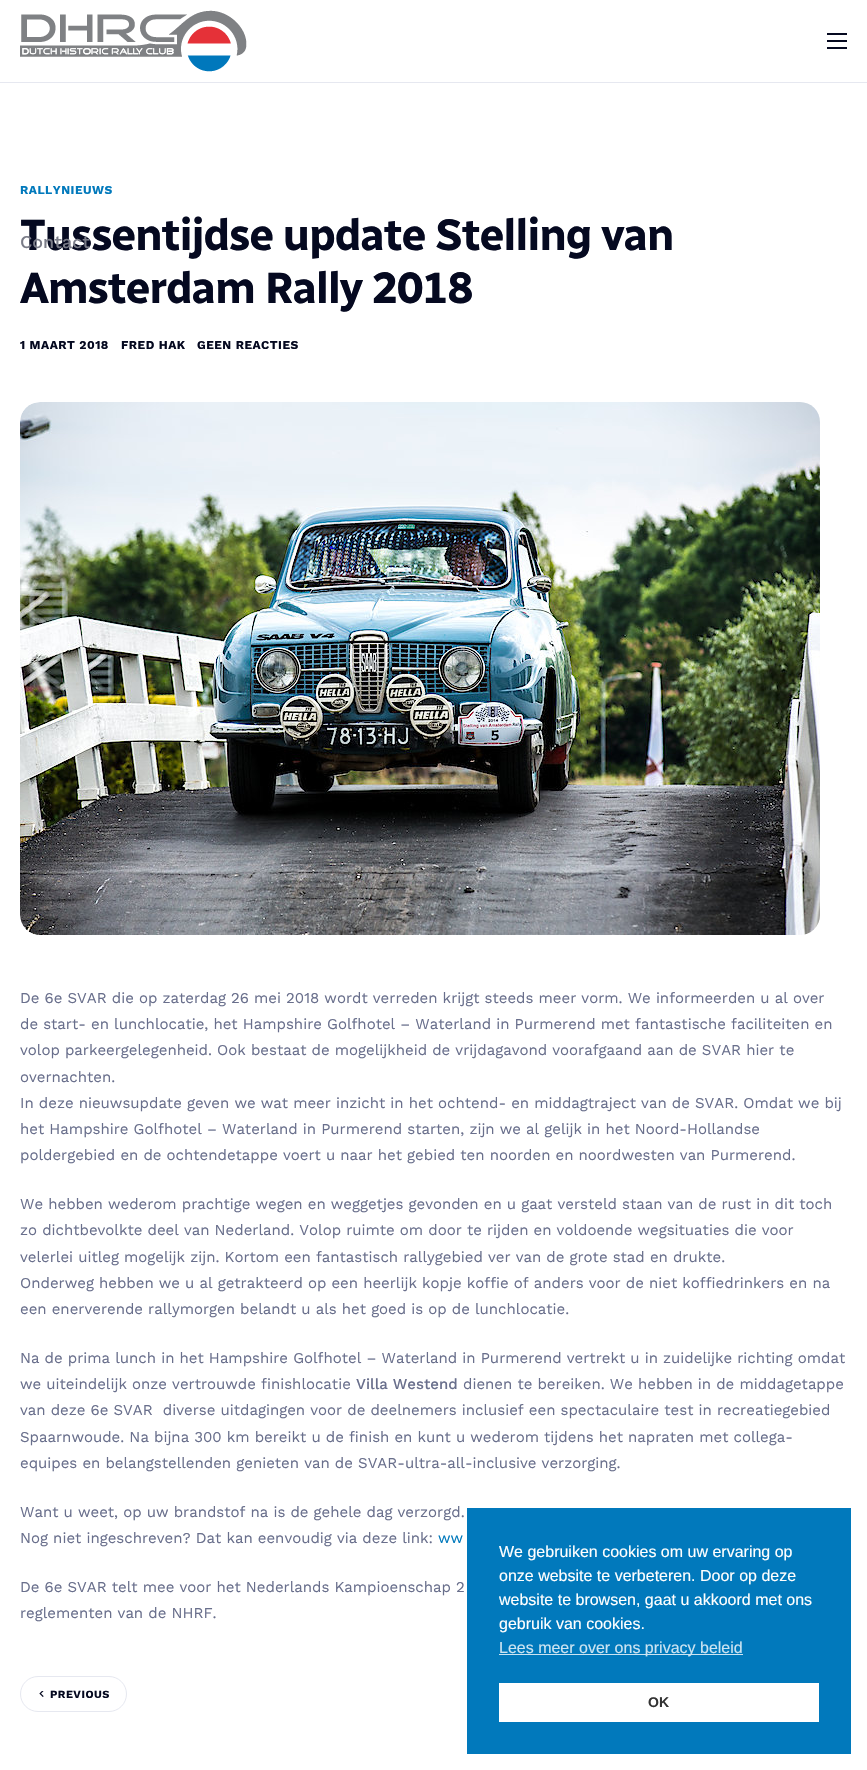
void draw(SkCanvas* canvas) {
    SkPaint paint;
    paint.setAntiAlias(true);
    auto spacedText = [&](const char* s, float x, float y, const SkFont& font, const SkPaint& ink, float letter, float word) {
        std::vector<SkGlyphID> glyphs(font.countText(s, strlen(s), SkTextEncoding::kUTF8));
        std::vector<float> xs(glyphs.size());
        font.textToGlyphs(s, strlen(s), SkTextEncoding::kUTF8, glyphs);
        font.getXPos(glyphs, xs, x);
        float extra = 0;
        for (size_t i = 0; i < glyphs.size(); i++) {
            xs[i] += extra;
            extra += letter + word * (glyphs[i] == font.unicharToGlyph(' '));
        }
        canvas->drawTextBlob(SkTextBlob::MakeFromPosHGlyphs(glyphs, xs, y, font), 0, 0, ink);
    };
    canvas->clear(0xFFFFFFFF);
    SkFont font1(fontMgr->matchFamilyStyle("Work Sans", SkFontStyle::Bold()), 12);
    font1.setSubpixel(true);
    paint.setColor(0xFF0179BC);
    spacedText("RALLYNIEUWS", 20, 194, font1, paint, 0.5f, 0);
    SkFont font2(fontMgr->matchFamilyStyle("Radio Canada", SkFontStyle::Bold()), 44);
    font2.setSubpixel(true);
    paint.setColor(0xFF050920);
    spacedText("Tussentijdse update Stelling van", 20, 250, font2, paint, -1.2f, 0);
    spacedText("Amsterdam Rally 2018", 20, 303, font2, paint, -1.2f, 0);
    spacedText("1 MAART 2018", 20, 349, font1, paint, 0.5f, 0);
    spacedText("FRED HAK", 121, 349, font1, paint, 0.5f, 0);
    spacedText("GEEN REACTIES", 197, 349, font1, paint, 0.5f, 0);
    canvas->drawImageRect(SkImages::DeferredFromEncodedData(SkData::MakeFromFileName("img1.png")), SkRect::MakeXYWH(20, 402, 800, 533), SkSamplingOptions());
    SkFont font3(fontMgr->matchFamilyStyle("Work Sans", SkFontStyle::Normal()), 15);
    font3.setSubpixel(true);
    paint.setColor(0xFF696F8C);
    canvas->drawString("De 6e SVAR die op zaterdag 26 mei 2018 wordt verreden krijgt steeds meer vorm. We informeerden u al over", 20, 1003, font3, paint);
    canvas->drawString("de start- en lunchlocatie, het Hampshire Golfhotel – Waterland in Purmerend met fantastische faciliteiten en", 20, 1029, font3, paint);
    canvas->drawString("volop parkeergelegenheid. Ook bestaat de mogelijkheid de vrijdagavond voorafgaand aan de SVAR hier te", 20, 1055, font3, paint);
    canvas->drawString("overnachten.", 20, 1082, font3, paint);
    canvas->drawString("In deze nieuwsupdate geven we wat meer inzicht in het ochtend- en middagtraject van de SVAR. Omdat we bij", 20, 1108, font3, paint);
    canvas->drawString("het Hampshire Golfhotel – Waterland in Purmerend starten, zijn we al gelijk in het Noord-Hollandse", 20, 1134, font3, paint);
    canvas->drawString("poldergebied en de ochtendetappe voert u naar het gebied ten noorden en noordwesten van Purmerend.", 20, 1160, font3, paint);
    canvas->drawString("We hebben wederom prachtige wegen en weggetjes gevonden en u gaat versteld staan van de rust in dit toch", 20, 1209, font3, paint);
    canvas->drawString("zo dichtbevolkte deel van Nederland. Volop ruimte om door te rijden en voldoende wegsituaties die voor", 20, 1235, font3, paint);
    canvas->drawString("velerlei uitleg mogelijk zijn. Kortom een fantastisch rallygebied ver van de grote stad en drukte.", 20, 1262, font3, paint);
    canvas->drawString("Onderweg hebben we u al getrakteerd op een heerlijk kopje koffie of anders voor de niet koffiedrinkers en na", 20, 1288, font3, paint);
    canvas->drawString("een enerverende rallymorgen belandt u als het goed is op de lunchlocatie.", 20, 1314, font3, paint);
    canvas->drawString("Na de prima lunch in het Hampshire Golfhotel – Waterland in Purmerend vertrekt u in zuidelijke richting omdat", 20, 1363, font3, paint);
    canvas->drawString("we uiteindelijk onze vertrouwde finishlocatie", 20, 1389, font3, paint);
    SkFont font4(fontMgr->matchFamilyStyle("Work Sans", SkFontStyle(500, SkFontStyle::kNormal_Width, SkFontStyle::kUpright_Slant)), 15);
    font4.setSubpixel(true);
    canvas->drawString("Villa Westend", 356, 1389, font4, paint);
    canvas->drawString("dienen te bereiken. We hebben in de middagetappe", 463, 1389, font3, paint);
    canvas->drawString("van deze 6e SVAR  diverse uitdagingen voor de deelnemers inclusief een spectaculaire test in recreatiegebied", 20, 1415, font3, paint);
    canvas->drawString("Spaarnwoude. Na bijna 300 km bereikt u de finish en kunt u wederom tijdens het napraten met collega-", 20, 1442, font3, paint);
    canvas->drawString("equipes en belangstellenden genieten van de SVAR-ultra-all-inclusive verzorging.", 20, 1468, font3, paint);
    canvas->drawString("Want u weet, op uw brandstof na is de gehele dag verzorgd.", 20, 1517, font3, paint);
    canvas->drawString("Nog niet ingeschreven? Dat kan eenvoudig via deze link:", 20, 1543, font3, paint);
    paint.setColor(0xFF0179BC);
    canvas->drawString("ww", 438, 1543, font3, paint);
    paint.setColor(0xFF696F8C);
    canvas->drawString("De 6e SVAR telt mee voor het Nederlands Kampioenschap 2", 20, 1592, font3, paint);
    canvas->drawString("reglementen van de NHRF.", 20, 1618, font3, paint);
    paint.setStyle(SkPaint::kStroke_Style);
    paint.setStrokeWidth(1);
    paint.setColor(0xFFE6E8F0);
    canvas->drawRoundRect(SkRect::MakeXYWH(20.5f, 1676.5f, 106, 35), 17.5f, 17.5f, paint);
    canvas->drawImageRect(SkImages::DeferredFromEncodedData(SkData::MakeFromFileName("img2.png")), SkRect::MakeXYWH(39, 1691, 5, 6), SkSamplingOptions());
    SkFont font5(fontMgr->matchFamilyStyle("Work Sans", SkFontStyle::Bold()), 11);
    font5.setSubpixel(true);
    paint.setStyle(SkPaint::kFill_Style);
    paint.setColor(0xFF050920);
    spacedText("PREVIOUS", 50, 1698, font5, paint, 0.5f, 0);
    paint.setColor(0xFFE6E8F0);
    canvas->drawRect(SkRect::MakeXYWH(0, 82, 867, 1), paint);
    canvas->drawImageRect(SkImages::DeferredFromEncodedData(SkData::MakeFromFileName("img3.png")), SkRect::MakeXYWH(20, 10, 227, 62), SkSamplingOptions());
    paint.setColor(0xFF050920);
    canvas->drawRect(SkRect::MakeXYWH(827, 33, 20, 2), paint);
    canvas->drawRect(SkRect::MakeXYWH(827, 40, 20, 2), paint);
    canvas->drawRect(SkRect::MakeXYWH(827, 47, 20, 2), paint);
    SkFont font6(fontMgr->matchFamilyStyle("Work Sans", SkFontStyle(500, SkFontStyle::kNormal_Width, SkFontStyle::kUpright_Slant)), 18);
    font6.setSubpixel(true);
    paint.setColor(0xFF7A7C88);
    canvas->drawString("Contact", 20, 248, font6, paint);
    paint.setColor(0xFF0179BC);
    canvas->drawRect(SkRect::MakeXYWH(467, 1508, 384, 246), paint);
    SkFont font7(fontMgr->matchFamilyStyle("Liberation Sans", SkFontStyle::Normal()), 16);
    font7.setSubpixel(true);
    paint.setColor(0xFFFFFFFF);
    canvas->drawString("We gebruiken cookies om uw ervaring op", 499, 1557, font7, paint);
    canvas->drawString("onze website te verbeteren. Door op deze", 499, 1581, font7, paint);
    canvas->drawString("website te browsen, gaat u akkoord met ons", 499, 1605, font7, paint);
    canvas->drawString("gebruik van cookies.", 499, 1629, font7, paint);
    paint.setColor(0xFFCCE4F2);
    canvas->drawRect(SkRect::MakeXYWH(499, 1654, 244, 1), paint);
    canvas->drawString("Lees meer over ons privacy beleid", 499, 1653, font7, paint);
    paint.setColor(0xFFFFFFFF);
    canvas->drawRect(SkRect::MakeXYWH(499, 1683, 320, 39), paint);
    SkFont font8(fontMgr->matchFamilyStyle("Liberation Sans", SkFontStyle::Bold()), 14);
    font8.setSubpixel(true);
    paint.setColor(0xFF333333);
    canvas->drawString("OK", 648, 1707, font8, paint);
}
